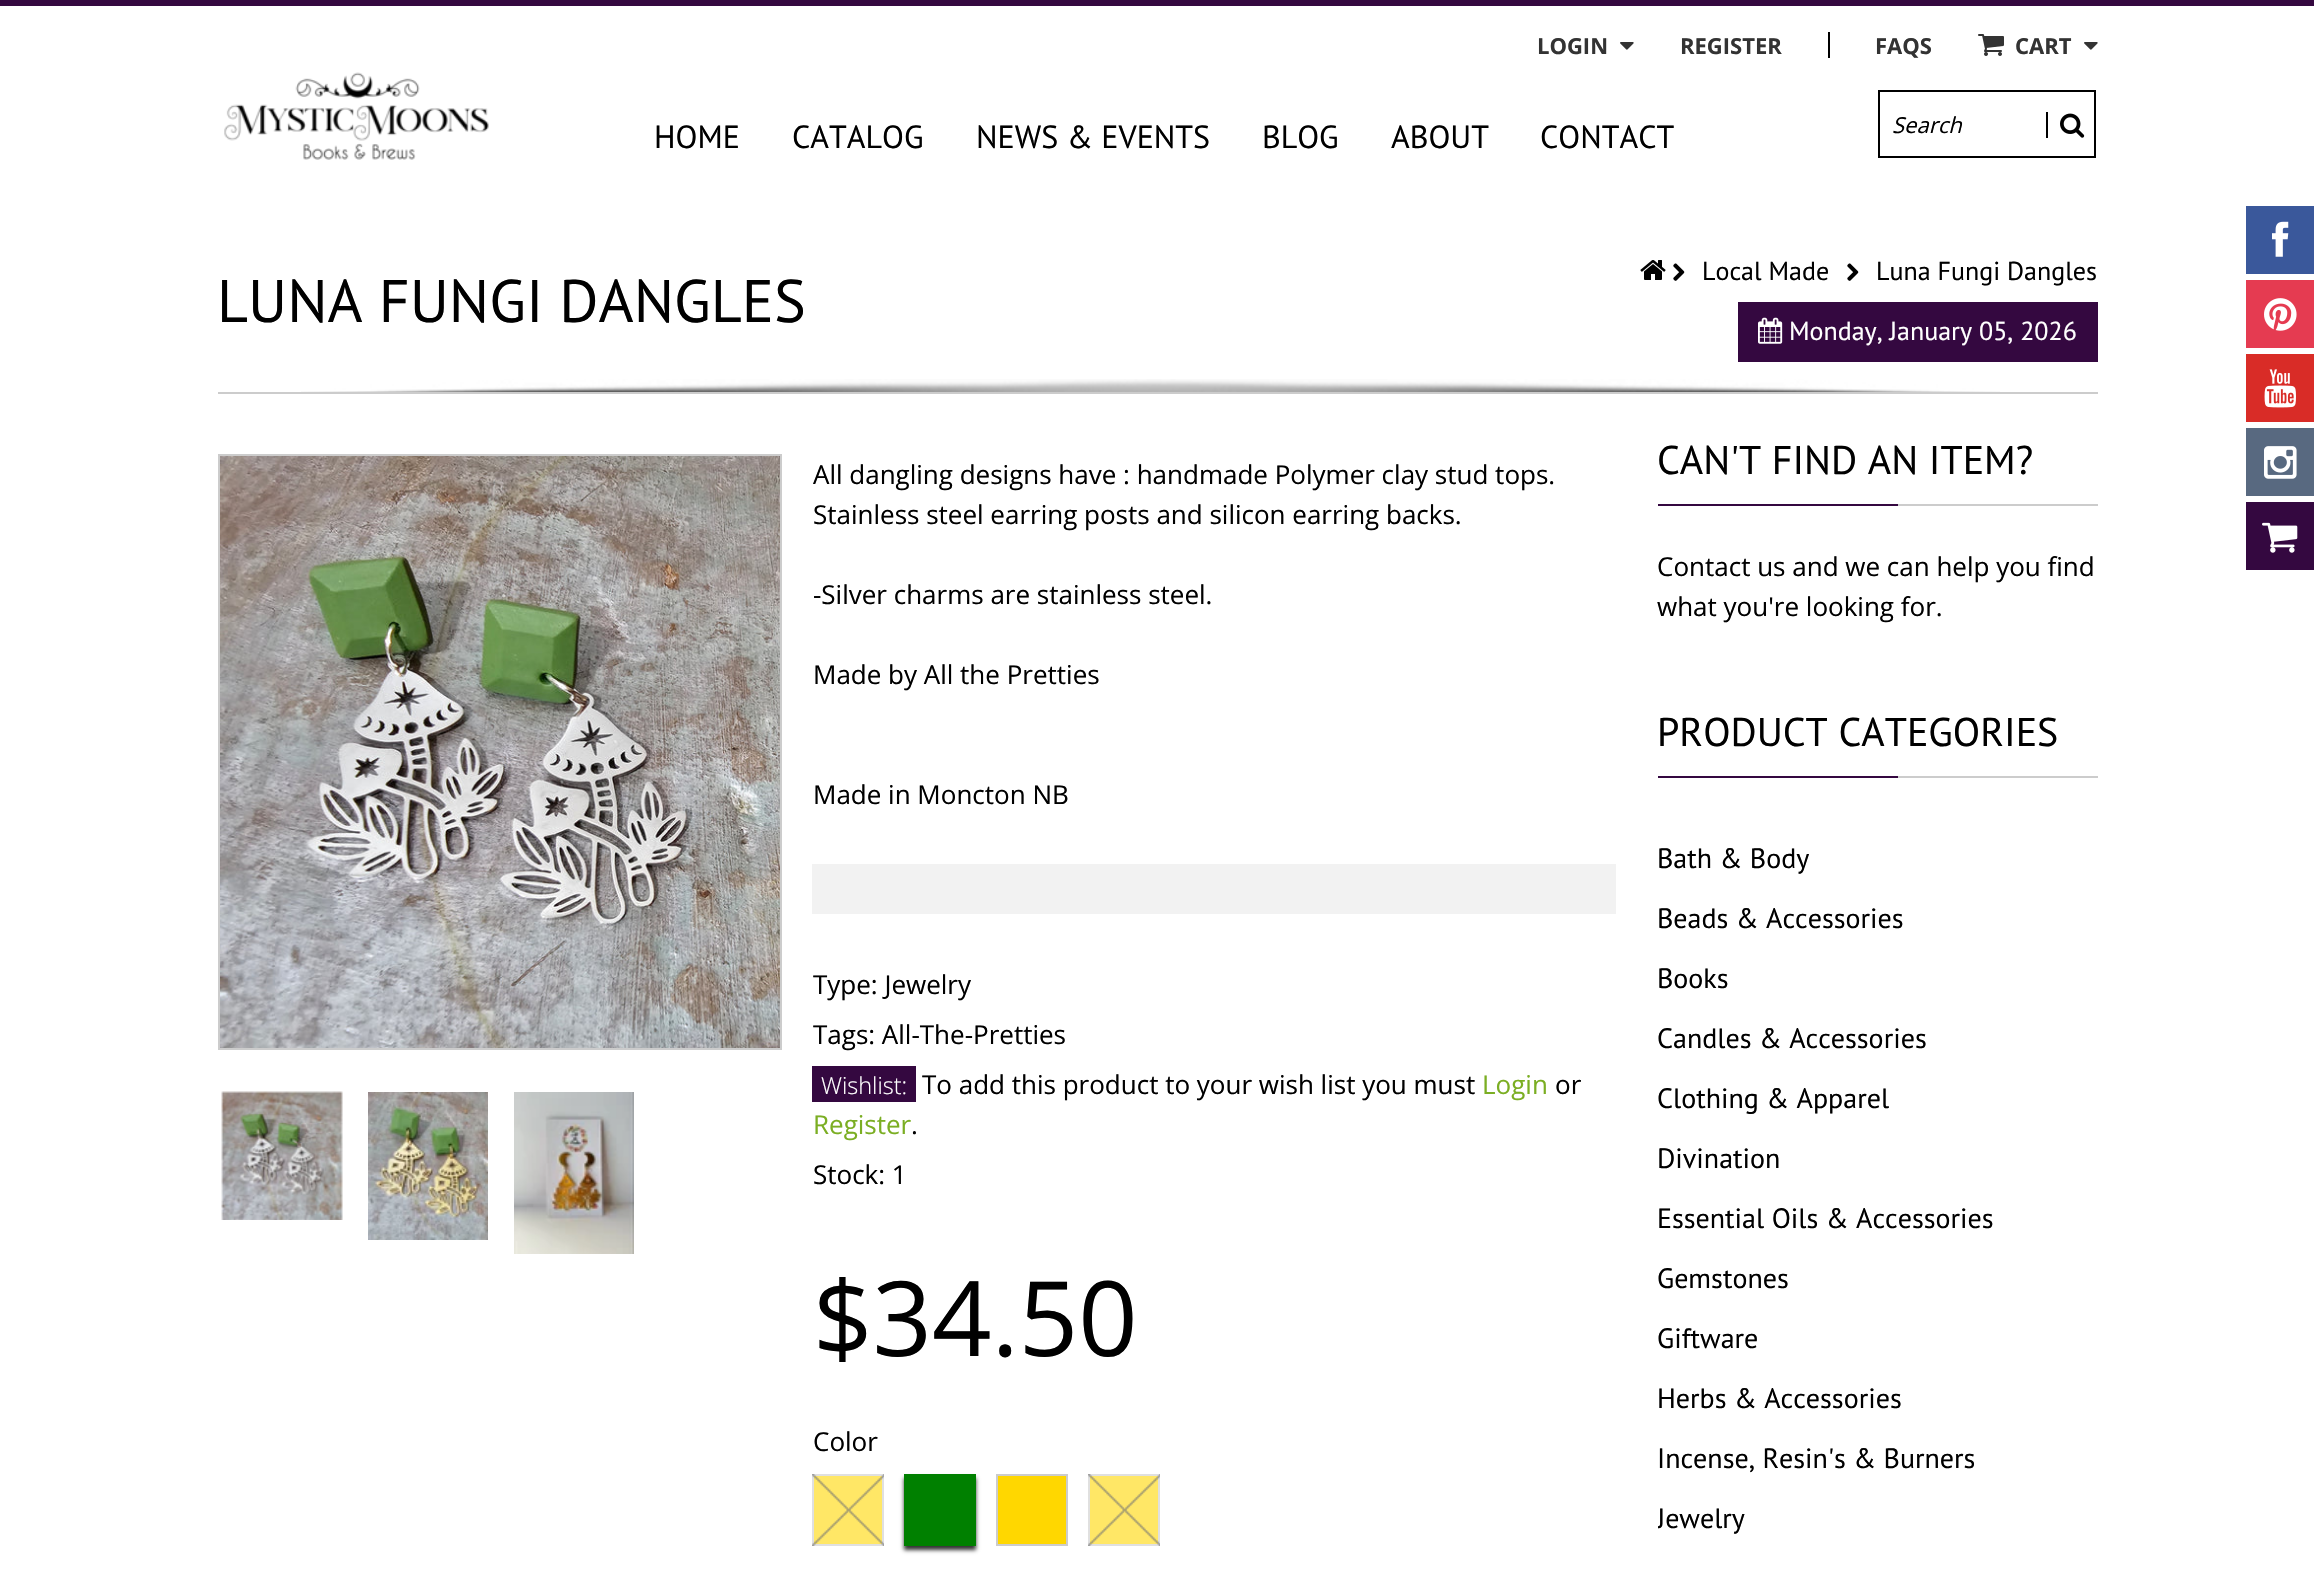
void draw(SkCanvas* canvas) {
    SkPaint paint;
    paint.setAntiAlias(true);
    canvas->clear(0xFFFFFFFF);
    paint.setColor(0xFF340840);
    canvas->drawRect(SkRect::MakeXYWH(0, 0, 2314, 6), paint);
    canvas->drawImageRect(SkImages::DeferredFromEncodedData(SkData::MakeFromFileName("img1.png")), SkRect::MakeXYWH(224, 72, 265, 88), SkSamplingOptions());
    SkFont font1(fontMgr->matchFamilyStyle("Open Sans", SkFontStyle::Bold()), 22);
    font1.setSubpixel(true);
    paint.setColor(0xFF333333);
    canvas->drawString("LOGIN", 1537, 54, font1, paint);
    canvas->drawImageRect(SkImages::DeferredFromEncodedData(SkData::MakeFromFileName("img2.png")), SkRect::MakeXYWH(1620, 42, 14, 8), SkSamplingOptions());
    canvas->drawString("REGISTER", 1680, 54, font1, paint);
    paint.setColor(0xFF000000);
    canvas->drawRect(SkRect::MakeXYWH(1828, 32, 2, 26), paint);
    paint.setColor(0xFF333333);
    canvas->drawString("FAQS", 1875, 54, font1, paint);
    canvas->drawImageRect(SkImages::DeferredFromEncodedData(SkData::MakeFromFileName("img3.png")), SkRect::MakeXYWH(1978, 34, 26, 22), SkSamplingOptions());
    canvas->drawString("CART", 2015, 54, font1, paint);
    canvas->drawImageRect(SkImages::DeferredFromEncodedData(SkData::MakeFromFileName("img2.png")), SkRect::MakeXYWH(2084, 42, 14, 8), SkSamplingOptions());
    SkFont font2(fontMgr->matchFamilyStyle("PT Sans", SkFontStyle::Normal()), 32);
    font2.setSubpixel(true);
    paint.setColor(0xFF000000);
    canvas->drawString("HOME", 654, 148, font2, paint);
    canvas->drawString("CATALOG", 792, 148, font2, paint);
    canvas->drawString("NEWS & EVENTS", 976, 148, font2, paint);
    canvas->drawString("BLOG", 1262, 148, font2, paint);
    canvas->drawString("ABOUT", 1391, 148, font2, paint);
    canvas->drawString("CONTACT", 1540, 148, font2, paint);
    paint.setStyle(SkPaint::kStroke_Style);
    paint.setStrokeWidth(2);
    canvas->drawRect(SkRect::MakeXYWH(1879, 91, 216, 66), paint);
    SkFont font3(fontMgr->matchFamilyStyle("Open Sans", SkFontStyle::Italic()), 22);
    font3.setSubpixel(true);
    paint.setStyle(SkPaint::kFill_Style);
    canvas->drawString("Search", 1892, 133, font3, paint);
    canvas->drawRect(SkRect::MakeXYWH(2046, 112, 2, 26), paint);
    canvas->drawImageRect(SkImages::DeferredFromEncodedData(SkData::MakeFromFileName("img4.png")), SkRect::MakeXYWH(2060, 113, 25, 25), SkSamplingOptions());
    paint.setColor(0xFFCCCCCC);
    canvas->drawRect(SkRect::MakeXYWH(218, 392, 1880, 2), paint);
    SkFont font4(fontMgr->matchFamilyStyle("PT Sans", SkFontStyle::Normal()), 60);
    font4.setSubpixel(true);
    paint.setColor(0xFF000000);
    canvas->drawString("LUNA FUNGI DANGLES", 217, 322, font4, paint);
    canvas->drawImageRect(SkImages::DeferredFromEncodedData(SkData::MakeFromFileName("img5.png")), SkRect::MakeXYWH(1640, 260, 26, 20), SkSamplingOptions());
    canvas->drawImageRect(SkImages::DeferredFromEncodedData(SkData::MakeFromFileName("img6.png")), SkRect::MakeXYWH(1673, 263, 12, 18), SkSamplingOptions());
    SkFont font5(fontMgr->matchFamilyStyle("PT Sans", SkFontStyle::Normal()), 26);
    font5.setSubpixel(true);
    canvas->drawString("Local Made", 1702, 280, font5, paint);
    canvas->drawImageRect(SkImages::DeferredFromEncodedData(SkData::MakeFromFileName("img6.png")), SkRect::MakeXYWH(1847, 263, 12, 18), SkSamplingOptions());
    canvas->drawString("Luna Fungi Dangles", 1876, 280, font5, paint);
    paint.setColor(0xFF340840);
    canvas->drawRect(SkRect::MakeXYWH(1738, 302, 360, 60), paint);
    canvas->drawImageRect(SkImages::DeferredFromEncodedData(SkData::MakeFromFileName("img7.png")), SkRect::MakeXYWH(1758, 317, 25, 27), SkSamplingOptions());
    paint.setColor(0xFFFFFFFF);
    canvas->drawString("Monday, January 05, 2026", 1789, 340, font5, paint);
    canvas->drawImageRect(SkImages::DeferredFromEncodedData(SkData::MakeFromFileName("img8.png")), SkRect::MakeXYWH(301, 379, 1699, 13), SkSamplingOptions());
    paint.setStyle(SkPaint::kStroke_Style);
    paint.setColor(0xFFCCCCCC);
    canvas->drawRect(SkRect::MakeXYWH(219, 455, 562, 594), paint);
    canvas->drawImageRect(SkImages::DeferredFromEncodedData(SkData::MakeFromFileName("img9.png")), SkRect::MakeXYWH(220, 456, 560, 592), SkSamplingOptions());
    canvas->drawImageRect(SkImages::DeferredFromEncodedData(SkData::MakeFromFileName("img10.png")), SkRect::MakeXYWH(221, 1091, 122, 129), SkSamplingOptions());
    canvas->drawImageRect(SkImages::DeferredFromEncodedData(SkData::MakeFromFileName("img11.png")), SkRect::MakeXYWH(368, 1092, 120, 148), SkSamplingOptions());
    canvas->drawImageRect(SkImages::DeferredFromEncodedData(SkData::MakeFromFileName("img12.png")), SkRect::MakeXYWH(514, 1092, 120, 162), SkSamplingOptions());
    SkFont font6(fontMgr->matchFamilyStyle("Open Sans", SkFontStyle::Normal()), 26);
    font6.setSubpixel(true);
    paint.setStyle(SkPaint::kFill_Style);
    paint.setColor(0xFF000000);
    canvas->drawString("All dangling designs have : handmade Polymer clay stud tops.", 813, 484, font6, paint);
    canvas->drawString("Stainless steel earring posts and silicon earring backs.", 813, 524, font6, paint);
    canvas->drawString("-Silver charms are stainless steel.", 813, 604, font6, paint);
    canvas->drawString("Made by All the Pretties", 813, 684, font6, paint);
    canvas->drawString("Made in Moncton NB", 813, 804, font6, paint);
    paint.setColor(0xFFF2F2F2);
    canvas->drawRect(SkRect::MakeXYWH(812, 864, 804, 50), paint);
    paint.setColor(0xFF000000);
    canvas->drawString("Type: Jewelry", 813, 994, font6, paint);
    canvas->drawString("Tags: All-The-Pretties", 813, 1044, font6, paint);
    paint.setColor(0xFF340840);
    canvas->drawRect(SkRect::MakeXYWH(812, 1066, 104, 36), paint);
    SkFont font7(fontMgr->matchFamilyStyle("Open Sans", SkFontStyle(300, SkFontStyle::kNormal_Width, SkFontStyle::kUpright_Slant)), 23.5f);
    font7.setSubpixel(true);
    paint.setColor(0xFFFFFFFF);
    canvas->drawString("Wishlist:", 821, 1094, font7, paint);
    paint.setColor(0xFF000000);
    canvas->drawString("To add this product to your wish list you must", 922, 1094, font6, paint);
    paint.setColor(0xFF7BAE23);
    canvas->drawString("Login", 1482, 1094, font6, paint);
    paint.setColor(0xFF000000);
    canvas->drawString("or", 1555, 1094, font6, paint);
    paint.setColor(0xFF7BAE23);
    canvas->drawString("Register", 813, 1134, font6, paint);
    paint.setColor(0xFF000000);
    canvas->drawString(".", 911, 1134, font6, paint);
    canvas->drawString("Stock: 1", 813, 1184, font6, paint);
    SkFont font8(fontMgr->matchFamilyStyle("Open Sans", SkFontStyle::Normal()), 104);
    font8.setSubpixel(true);
    canvas->drawString("$34.50", 813, 1356, font8, paint);
    canvas->drawString("Color", 813, 1451, font6, paint);
    paint.setColor(0xFFFFE766);
    canvas->drawRect(SkRect::MakeXYWH(813, 1475, 70, 70), paint);
    paint.setStyle(SkPaint::kStroke_Style);
    paint.setColor(0xFFE0E0E0);
    canvas->drawRect(SkRect::MakeXYWH(813, 1475, 70, 70), paint);
    canvas->drawImageRect(SkImages::DeferredFromEncodedData(SkData::MakeFromFileName("img13.png")), SkRect::MakeXYWH(812, 1474, 72, 72), SkSamplingOptions());
    paint.setStyle(SkPaint::kFill_Style);
    paint.setColor(0xCC000000);
    paint.setMaskFilter(SkMaskFilter::MakeBlur(kNormal_SkBlurStyle, 2));
    canvas->drawRect(SkRect::MakeXYWH(904, 1478, 72, 72), paint);
    paint.setMaskFilter(nullptr);
    paint.setColor(0xFF008000);
    canvas->drawRect(SkRect::MakeXYWH(904, 1474, 72, 72), paint);
    paint.setColor(0xFFFFD700);
    canvas->drawRect(SkRect::MakeXYWH(997, 1475, 70, 70), paint);
    paint.setStyle(SkPaint::kStroke_Style);
    paint.setColor(0xFFCCCCCC);
    canvas->drawRect(SkRect::MakeXYWH(997, 1475, 70, 70), paint);
    paint.setStyle(SkPaint::kFill_Style);
    paint.setColor(0xFFFFE766);
    canvas->drawRect(SkRect::MakeXYWH(1089, 1475, 70, 70), paint);
    paint.setStyle(SkPaint::kStroke_Style);
    paint.setColor(0xFFE0E0E0);
    canvas->drawRect(SkRect::MakeXYWH(1089, 1475, 70, 70), paint);
    canvas->drawImageRect(SkImages::DeferredFromEncodedData(SkData::MakeFromFileName("img13.png")), SkRect::MakeXYWH(1088, 1474, 72, 72), SkSamplingOptions());
    SkFont font9(fontMgr->matchFamilyStyle("PT Sans", SkFontStyle::Normal()), 40);
    font9.setSubpixel(true);
    paint.setStyle(SkPaint::kFill_Style);
    paint.setColor(0xFF000000);
    canvas->drawString("CAN'T FIND AN ITEM?", 1657, 474, font9, paint);
    paint.setColor(0xFF340840);
    canvas->drawRect(SkRect::MakeXYWH(1658, 504, 240, 2), paint);
    paint.setColor(0xFFCCCCCC);
    canvas->drawRect(SkRect::MakeXYWH(1898, 504, 200, 2), paint);
    paint.setColor(0xFF000000);
    canvas->drawString("Contact us and we can help you find", 1657, 576, font6, paint);
    canvas->drawString("what you're looking for.", 1657, 616, font6, paint);
    canvas->drawString("PRODUCT CATEGORIES", 1657, 746, font9, paint);
    paint.setColor(0xFF340840);
    canvas->drawRect(SkRect::MakeXYWH(1658, 776, 240, 2), paint);
    paint.setColor(0xFFCCCCCC);
    canvas->drawRect(SkRect::MakeXYWH(1898, 776, 200, 2), paint);
    SkFont font10(fontMgr->matchFamilyStyle("PT Sans", SkFontStyle::Normal()), 28);
    font10.setSubpixel(true);
    paint.setColor(0xFF000000);
    canvas->drawString("Bath & Body", 1657, 868, font10, paint);
    canvas->drawString("Beads & Accessories", 1657, 928, font10, paint);
    canvas->drawString("Books", 1657, 988, font10, paint);
    canvas->drawString("Candles & Accessories", 1657, 1048, font10, paint);
    canvas->drawString("Clothing & Apparel", 1657, 1108, font10, paint);
    canvas->drawString("Divination", 1657, 1168, font10, paint);
    canvas->drawString("Essential Oils & Accessories", 1657, 1228, font10, paint);
    canvas->drawString("Gemstones", 1657, 1288, font10, paint);
    canvas->drawString("Giftware", 1657, 1348, font10, paint);
    canvas->drawString("Herbs & Accessories", 1657, 1408, font10, paint);
    canvas->drawString("Incense, Resin's & Burners", 1657, 1468, font10, paint);
    canvas->save();
    canvas->clipRect(SkRect::MakeXYWH(1658, 818, 440, 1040));
    canvas->drawString("Jewelry", 1657, 1528, font10, paint);
    canvas->restore();
    paint.setColor(0xFF3A589B);
    canvas->drawRect(SkRect::MakeXYWH(2246, 206, 68, 68), paint);
    canvas->drawImageRect(SkImages::DeferredFromEncodedData(SkData::MakeFromFileName("img14.png")), SkRect::MakeXYWH(2272, 221, 17, 36), SkSamplingOptions());
    paint.setColor(0xFFE53B51);
    canvas->drawRect(SkRect::MakeXYWH(2246, 280, 68, 68), paint);
    canvas->drawImageRect(SkImages::DeferredFromEncodedData(SkData::MakeFromFileName("img15.png")), SkRect::MakeXYWH(2264, 298, 33, 33), SkSamplingOptions());
    paint.setColor(0xFFD92C27);
    canvas->drawRect(SkRect::MakeXYWH(2246, 354, 68, 68), paint);
    canvas->drawImageRect(SkImages::DeferredFromEncodedData(SkData::MakeFromFileName("img16.png")), SkRect::MakeXYWH(2264, 369, 32, 39), SkSamplingOptions());
    paint.setColor(0xFF586980);
    canvas->drawRect(SkRect::MakeXYWH(2246, 428, 68, 68), paint);
    canvas->drawImageRect(SkImages::DeferredFromEncodedData(SkData::MakeFromFileName("img17.png")), SkRect::MakeXYWH(2264, 446, 33, 33), SkSamplingOptions());
    paint.setColor(0xFF340840);
    canvas->drawRect(SkRect::MakeXYWH(2246, 502, 68, 68), paint);
    canvas->drawImageRect(SkImages::DeferredFromEncodedData(SkData::MakeFromFileName("img18.png")), SkRect::MakeXYWH(2262, 522, 36, 31), SkSamplingOptions());
}
